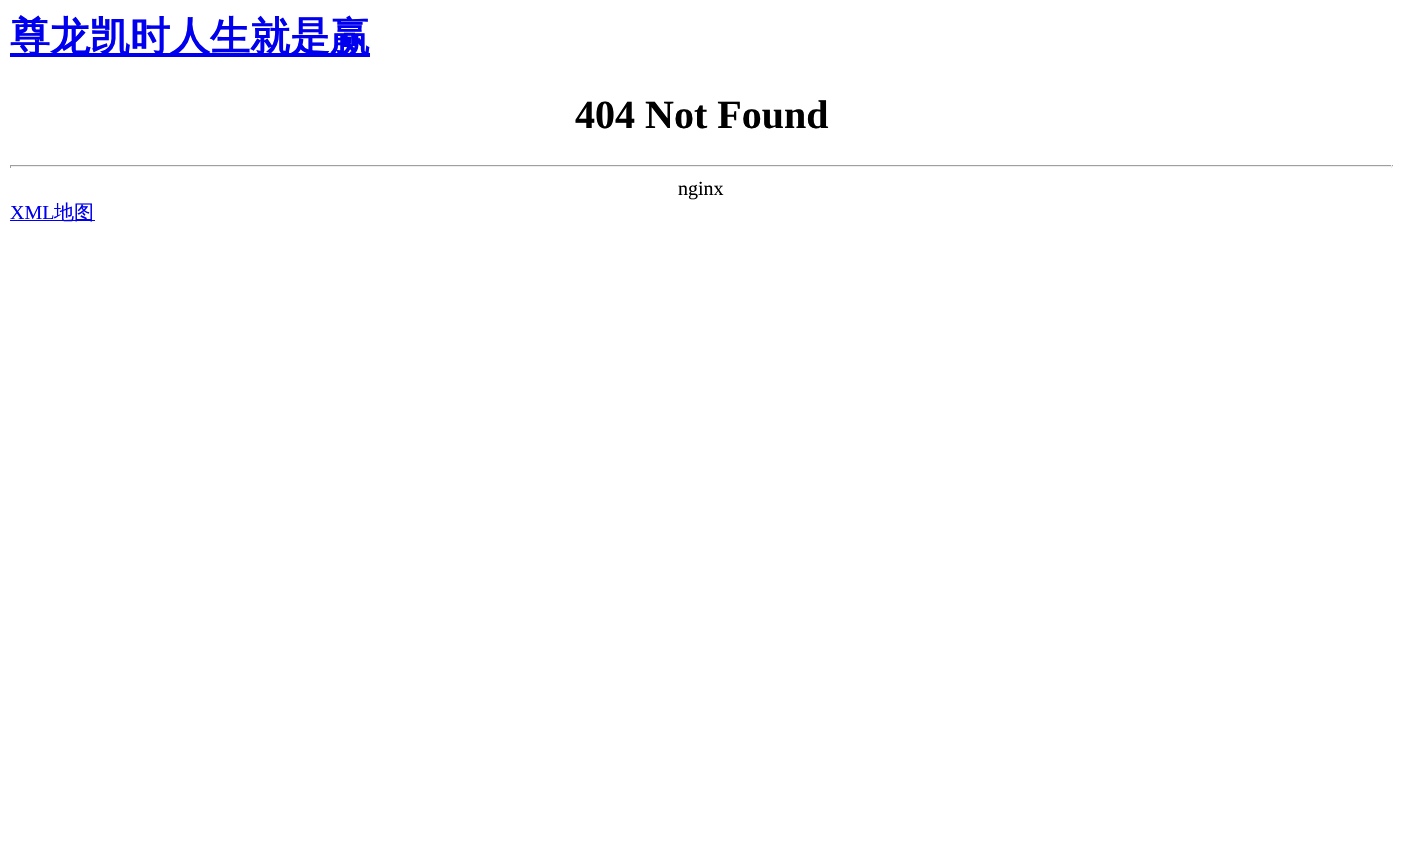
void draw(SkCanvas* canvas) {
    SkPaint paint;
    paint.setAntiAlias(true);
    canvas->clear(0xFFFFFFFF);
    paint.setColor(0xFF0000EE);
    canvas->drawRect(SkRect::MakeXYWH(10, 53, 360, 4), paint);
    SkFont font1(fontMgr->matchFamilyStyle("WenQuanYi Zen Hei", SkFontStyle::Bold()), 40);
    font1.setSubpixel(true);
    canvas->drawString("尊龙凯时人生就是赢", 10, 50, font1, paint);
    SkFont font2(fontMgr->matchFamilyStyle("Liberation Serif", SkFontStyle::Bold()), 40);
    font2.setSubpixel(true);
    paint.setColor(0xFF000000);
    canvas->drawString("404 Not Found", 575, 128, font2, paint);
    paint.setColor(0xFF9F9F9F);
    canvas->drawRect(SkRect::MakeXYWH(10, 165, 1383, 1), paint);
    paint.setColor(0xFFEEEEEE);
    canvas->drawRect(SkRect::MakeXYWH(1391, 165, 1, 3), paint);
    canvas->drawRect(SkRect::MakeXYWH(10, 166, 1383, 1), paint);
    paint.setColor(0xFF9F9F9F);
    canvas->drawRect(SkRect::MakeXYWH(10, 165, 1, 3), paint);
    SkFont font3(fontMgr->matchFamilyStyle("Liberation Serif", SkFontStyle::Normal()), 20);
    font3.setSubpixel(true);
    paint.setColor(0xFF000000);
    canvas->drawString("nginx", 678, 195, font3, paint);
    paint.setColor(0xFF0000EE);
    canvas->drawString("XML", 10, 219, font3, paint);
    canvas->drawRect(SkRect::MakeXYWH(10, 220, 85, 1), paint);
    SkFont font4(fontMgr->matchFamilyStyle("WenQuanYi Zen Hei", SkFontStyle(500, SkFontStyle::kNormal_Width, SkFontStyle::kUpright_Slant)), 20);
    font4.setSubpixel(true);
    canvas->drawString("地图", 54, 219, font4, paint);
}
